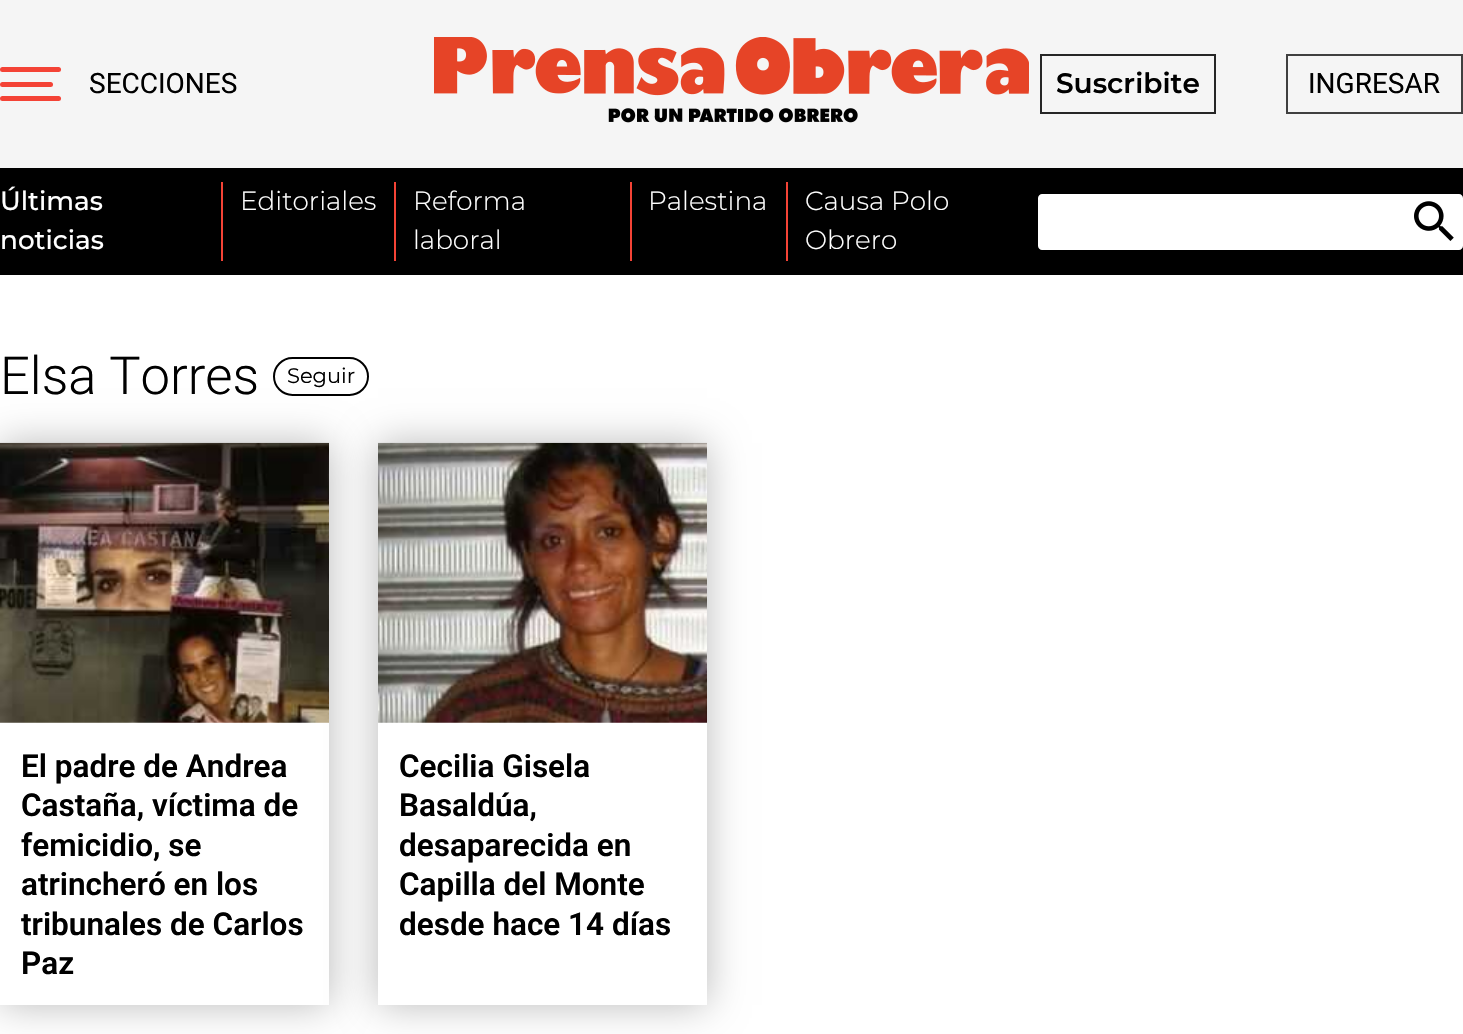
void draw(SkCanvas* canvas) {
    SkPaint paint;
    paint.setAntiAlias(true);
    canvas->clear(0xFFFFFFFF);
    paint.setColor(0xFFF5F5F5);
    canvas->drawRect(SkRect::MakeXYWH(0, 0, 1463, 168), paint);
    paint.setColor(0xFFF44336);
    canvas->drawRoundRect(SkRect::MakeXYWH(0, 67, 61, 5), 2.5f, 2.5f, paint);
    canvas->drawRoundRect(SkRect::MakeXYWH(0, 82, 53, 5), 2.5f, 2.5f, paint);
    canvas->drawRoundRect(SkRect::MakeXYWH(0, 96, 61, 5), 2.5f, 2.5f, paint);
    SkFont font1(fontMgr->matchFamilyStyle("Roboto", SkFontStyle::Normal()), 28);
    font1.setSubpixel(true);
    paint.setColor(0xFF000000);
    canvas->drawString("SECCIONES", 89, 93, font1, paint);
    canvas->drawImageRect(SkImages::DeferredFromEncodedData(SkData::MakeFromFileName("img1.png")), SkRect::MakeXYWH(434, 37, 595, 86), SkSamplingOptions());
    paint.setStyle(SkPaint::kStroke_Style);
    paint.setStrokeWidth(2);
    paint.setColor(0xFF262626);
    canvas->drawRect(SkRect::MakeXYWH(1041, 55, 174, 58), paint);
    SkFont font2(fontMgr->matchFamilyStyle("Montserrat", SkFontStyle(600, SkFontStyle::kNormal_Width, SkFontStyle::kUpright_Slant)), 28);
    font2.setSubpixel(true);
    paint.setStyle(SkPaint::kFill_Style);
    paint.setColor(0xFF000000);
    canvas->drawString("Suscribite", 1056, 93, font2, paint);
    paint.setStyle(SkPaint::kStroke_Style);
    paint.setColor(0xFF404040);
    canvas->drawRect(SkRect::MakeXYWH(1287, 55, 175, 58), paint);
    paint.setStyle(SkPaint::kFill_Style);
    paint.setColor(0xFF000000);
    canvas->drawString("INGRESAR", 1308, 93, font1, paint);
    canvas->drawRect(SkRect::MakeXYWH(0, 168, 1463, 107), paint);
    SkFont font3(fontMgr->matchFamilyStyle("Montserrat", SkFontStyle(500, SkFontStyle::kNormal_Width, SkFontStyle::kUpright_Slant)), 26.25f);
    font3.setSubpixel(true);
    paint.setColor(0xFFFFFFFF);
    canvas->drawString("Últimas", 0, 210, font3, paint);
    canvas->drawString("noticias", 0, 249, font3, paint);
    paint.setColor(0xFFF44336);
    canvas->drawRect(SkRect::MakeXYWH(221, 182, 2, 79), paint);
    SkFont font4(fontMgr->matchFamilyStyle("Montserrat", SkFontStyle(300, SkFontStyle::kNormal_Width, SkFontStyle::kUpright_Slant)), 26.25f);
    font4.setSubpixel(true);
    paint.setColor(0xFFFFFFFF);
    canvas->drawString("Editoriales", 240, 210, font4, paint);
    paint.setColor(0xFFF44336);
    canvas->drawRect(SkRect::MakeXYWH(394, 182, 2, 79), paint);
    paint.setColor(0xFFFFFFFF);
    canvas->drawString("Reforma", 413, 210, font4, paint);
    canvas->drawString("laboral", 413, 249, font4, paint);
    paint.setColor(0xFFF44336);
    canvas->drawRect(SkRect::MakeXYWH(630, 182, 2, 79), paint);
    paint.setColor(0xFFFFFFFF);
    canvas->drawString("Palestina", 648, 210, font4, paint);
    paint.setColor(0xFFF44336);
    canvas->drawRect(SkRect::MakeXYWH(786, 182, 2, 79), paint);
    paint.setColor(0xFFFFFFFF);
    canvas->drawString("Causa Polo", 805, 210, font4, paint);
    canvas->drawString("Obrero", 805, 249, font4, paint);
    canvas->drawPath(SkPathBuilder().moveTo(1042, 194).lineTo(1407, 194).lineTo(1407, 250).lineTo(1042, 250).cubicTo(1040, 250, 1038, 248, 1038, 246).lineTo(1038, 198).cubicTo(1038, 196, 1040, 194, 1042, 194).close().detach(), paint);
    canvas->drawPath(SkPathBuilder().moveTo(1407, 194).lineTo(1459, 194).cubicTo(1461, 194, 1463, 196, 1463, 198).lineTo(1463, 246).cubicTo(1463, 248, 1461, 250, 1459, 250).lineTo(1407, 250).close().detach(), paint);
    canvas->drawImageRect(SkImages::DeferredFromEncodedData(SkData::MakeFromFileName("img2.png")), SkRect::MakeXYWH(1414, 201, 40, 40), SkSamplingOptions());
    SkFont font5(fontMgr->matchFamilyStyle("Roboto", SkFontStyle(300, SkFontStyle::kNormal_Width, SkFontStyle::kUpright_Slant)), 52.5f);
    font5.setSubpixel(true);
    paint.setColor(0xFF000000);
    canvas->drawString("Elsa Torres", 0, 394, font5, paint);
    paint.setStyle(SkPaint::kStroke_Style);
    canvas->drawRoundRect(SkRect::MakeXYWH(274, 358, 94, 37), 18.5f, 18.5f, paint);
    SkFont font6(fontMgr->matchFamilyStyle("Montserrat", SkFontStyle::Normal()), 21);
    font6.setSubpixel(true);
    paint.setStyle(SkPaint::kFill_Style);
    canvas->drawString("Seguir", 287, 383, font6, paint);
    paint.setColor(0x45000000);
    paint.setMaskFilter(SkMaskFilter::MakeBlur(kNormal_SkBlurStyle, 18.5f));
    canvas->drawRect(SkRect::MakeXYWH(0, 443, 329, 562), paint);
    paint.setMaskFilter(nullptr);
    paint.setColor(0xFFFFFFFF);
    canvas->drawRect(SkRect::MakeXYWH(0, 722, 329, 283), paint);
    paint.setColor(0x45000000);
    paint.setMaskFilter(SkMaskFilter::MakeBlur(kNormal_SkBlurStyle, 18.5f));
    canvas->drawRect(SkRect::MakeXYWH(378, 443, 329, 562), paint);
    paint.setMaskFilter(nullptr);
    canvas->drawImageRect(SkImages::DeferredFromEncodedData(SkData::MakeFromFileName("img3.png")), SkRect::MakeXYWH(0, 442, 329, 281), SkSamplingOptions());
    SkFont font7(fontMgr->matchFamilyStyle("Roboto", SkFontStyle(600, SkFontStyle::kNormal_Width, SkFontStyle::kUpright_Slant)), 31.5f);
    font7.setSubpixel(true);
    paint.setColor(0xFF000000);
    canvas->drawString("El padre de Andrea", 21, 777, font7, paint);
    canvas->drawString("Castaña, víctima de", 21, 816, font7, paint);
    canvas->drawString("femicidio, se", 21, 856, font7, paint);
    canvas->drawString("atrincheró en los", 21, 895, font7, paint);
    canvas->drawString("tribunales de Carlos", 21, 935, font7, paint);
    canvas->drawString("Paz", 21, 974, font7, paint);
    paint.setColor(0xFFFFFFFF);
    canvas->drawRect(SkRect::MakeXYWH(378, 722, 329, 283), paint);
    canvas->drawImageRect(SkImages::DeferredFromEncodedData(SkData::MakeFromFileName("img4.png")), SkRect::MakeXYWH(378, 442, 329, 281), SkSamplingOptions());
    paint.setColor(0xFF000000);
    canvas->drawString("Cecilia Gisela", 399, 777, font7, paint);
    canvas->drawString("Basaldúa,", 399, 816, font7, paint);
    canvas->drawString("desaparecida en", 399, 856, font7, paint);
    canvas->drawString("Capilla del Monte", 399, 895, font7, paint);
    canvas->drawString("desde hace 14 días", 399, 935, font7, paint);
}
